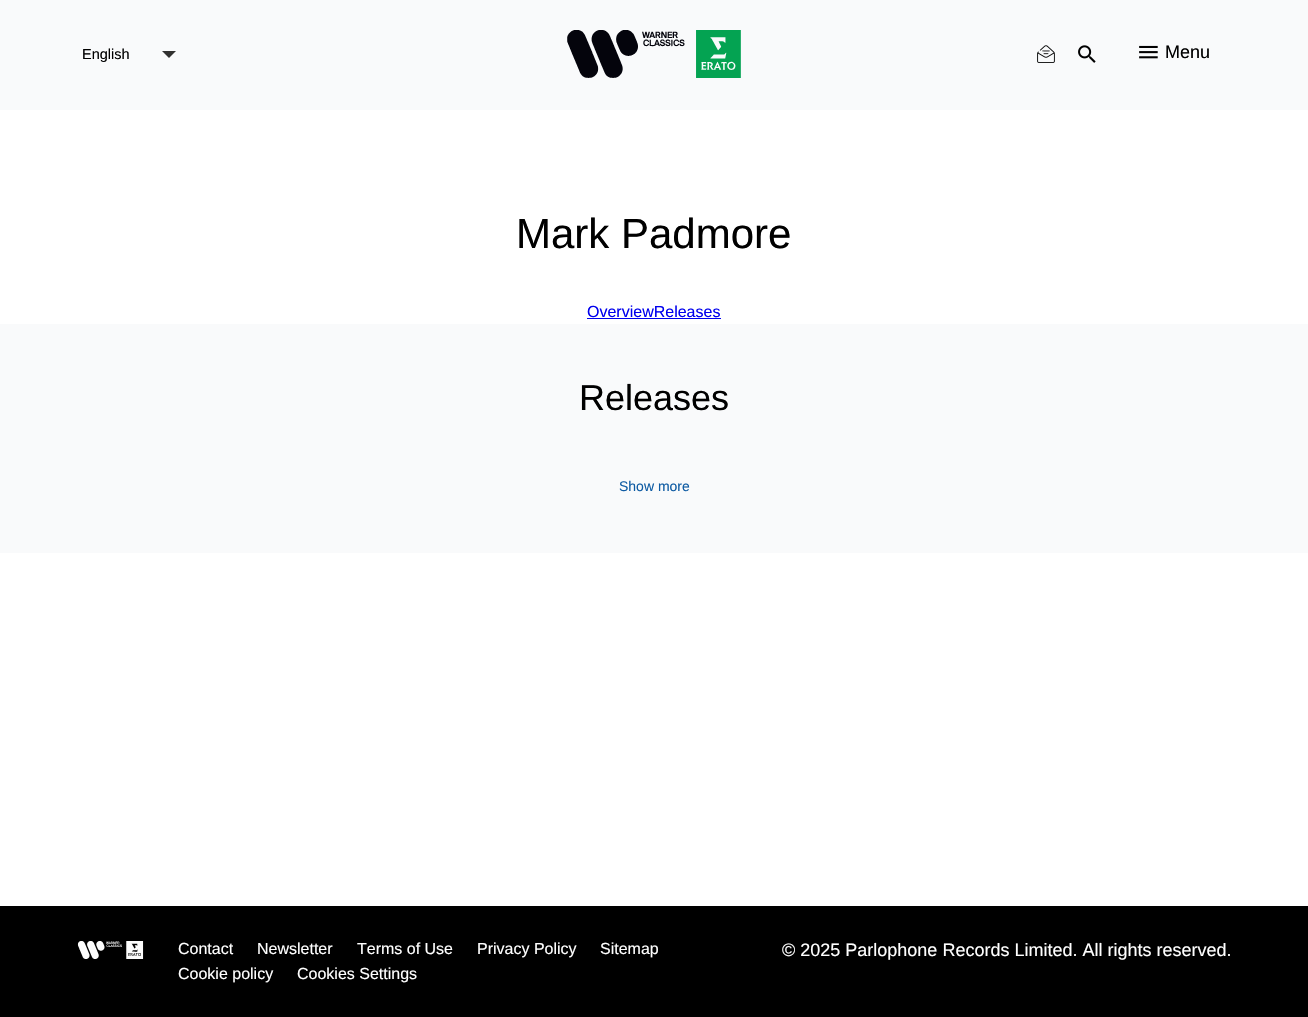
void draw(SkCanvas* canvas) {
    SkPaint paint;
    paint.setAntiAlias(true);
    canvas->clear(0xFFFFFFFF);
    paint.setColor(0xFFF9FAFB);
    canvas->drawRect(SkRect::MakeXYWH(0, 0, 1308, 110), paint);
    SkFont font1(fontMgr->matchFamilyStyle("Liberation Sans", SkFontStyle::Normal()), 14.5f);
    font1.setSubpixel(true);
    paint.setColor(0xFF000000);
    canvas->drawString("English", 82, 59, font1, paint);
    paint.setColor(0xFF323130);
    canvas->drawPath(SkPathBuilder().moveTo(162, 51).lineTo(176, 51).lineTo(169, 58).close().detach(), paint);
    canvas->drawImageRect(SkImages::DeferredFromEncodedData(SkData::MakeFromFileName("img1.png")), SkRect::MakeXYWH(567, 30, 174, 48), SkSamplingOptions());
    canvas->drawImageRect(SkImages::DeferredFromEncodedData(SkData::MakeFromFileName("img2.png")), SkRect::MakeXYWH(1037, 45, 18, 18), SkSamplingOptions());
    canvas->drawImageRect(SkImages::DeferredFromEncodedData(SkData::MakeFromFileName("img3.png")), SkRect::MakeXYWH(1078, 45, 18, 18), SkSamplingOptions());
    canvas->drawImageRect(SkImages::DeferredFromEncodedData(SkData::MakeFromFileName("img4.png")), SkRect::MakeXYWH(1139, 45, 19, 14), SkSamplingOptions());
    SkFont font2(fontMgr->matchFamilyStyle("Liberation Sans", SkFontStyle::Normal()), 18);
    font2.setSubpixel(true);
    paint.setColor(0xFF000000);
    canvas->drawString("Menu", 1165, 58, font2, paint);
    SkFont font3(fontMgr->matchFamilyStyle("Liberation Sans", SkFontStyle::Normal()), 42);
    font3.setSubpixel(true);
    canvas->drawString("Mark Padmore", 516, 248, font3, paint);
    SkFont font4(fontMgr->matchFamilyStyle("Liberation Sans", SkFontStyle::Normal()), 16);
    font4.setSubpixel(true);
    paint.setColor(0xFF0000EE);
    canvas->drawString("OverviewReleases", 587, 317, font4, paint);
    canvas->drawRect(SkRect::MakeXYWH(587, 318, 134, 1), paint);
    paint.setColor(0xFFF9FAFB);
    canvas->drawRect(SkRect::MakeXYWH(0, 324, 1308, 229), paint);
    SkFont font5(fontMgr->matchFamilyStyle("Liberation Sans", SkFontStyle::Normal()), 36);
    font5.setSubpixel(true);
    paint.setColor(0xFF000000);
    canvas->drawString("Releases", 579, 410, font5, paint);
    SkFont font6(fontMgr->matchFamilyStyle("Liberation Sans", SkFontStyle::Normal()), 14);
    font6.setSubpixel(true);
    paint.setColor(0xFF0E5BA3);
    canvas->drawString("Show more", 619, 491, font6, paint);
    paint.setColor(0xFF000000);
    canvas->drawRect(SkRect::MakeXYWH(0, 906, 1308, 111), paint);
    canvas->drawImageRect(SkImages::DeferredFromEncodedData(SkData::MakeFromFileName("img5.png")), SkRect::MakeXYWH(77, 941, 67, 18), SkSamplingOptions());
    paint.setColor(0xFFFFFFFF);
    canvas->drawString("Contact", 178, 954, font4, paint);
    canvas->drawString("Newsletter", 257, 954, font4, paint);
    canvas->drawString("Terms of Use", 357, 954, font4, paint);
    canvas->drawString("Privacy Policy", 477, 954, font4, paint);
    canvas->drawString("Sitemap", 600, 954, font4, paint);
    canvas->drawString("Cookie policy", 178, 979, font4, paint);
    canvas->drawString("Cookies Settings", 297, 979, font4, paint);
    canvas->drawString("© 2025 Parlophone Records Limited. All rights reserved.", 782, 956, font2, paint);
}
